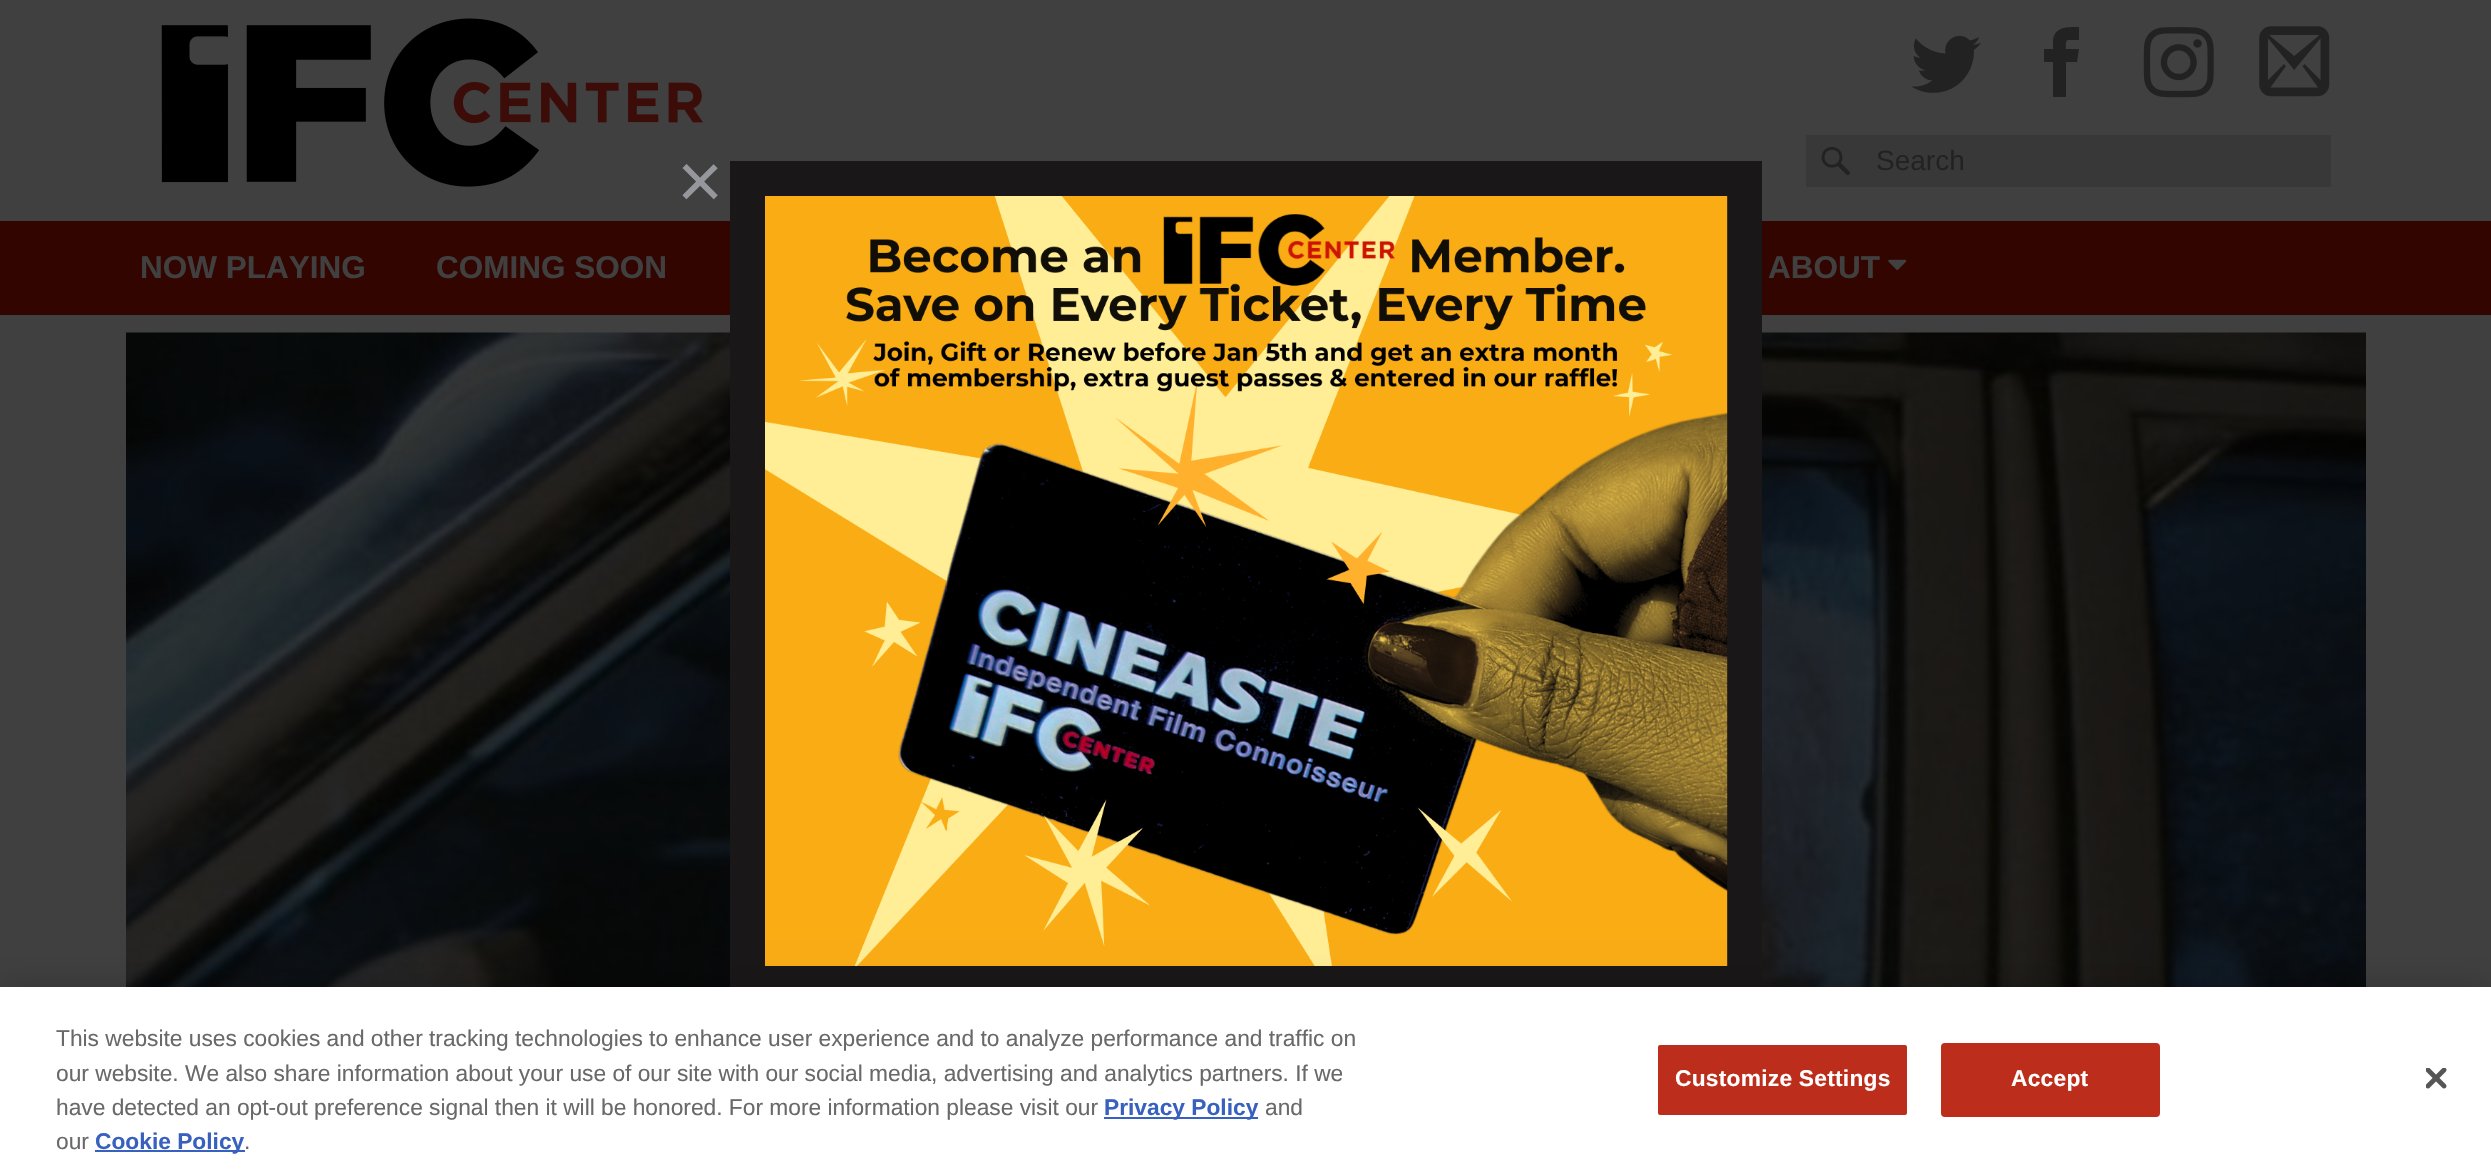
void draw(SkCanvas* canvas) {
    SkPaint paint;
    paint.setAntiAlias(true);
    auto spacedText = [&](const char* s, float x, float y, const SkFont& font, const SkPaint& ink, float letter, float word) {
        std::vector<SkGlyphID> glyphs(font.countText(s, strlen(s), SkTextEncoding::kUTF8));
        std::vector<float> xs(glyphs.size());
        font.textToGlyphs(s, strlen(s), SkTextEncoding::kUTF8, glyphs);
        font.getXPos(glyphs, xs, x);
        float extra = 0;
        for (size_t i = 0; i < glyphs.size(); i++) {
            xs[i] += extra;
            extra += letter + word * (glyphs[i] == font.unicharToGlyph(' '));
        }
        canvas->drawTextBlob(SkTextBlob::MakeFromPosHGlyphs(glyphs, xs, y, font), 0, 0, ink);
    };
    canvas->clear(0xFF404040);
    canvas->drawImageRect(SkImages::DeferredFromEncodedData(SkData::MakeFromFileName("img1.png")), SkRect::MakeXYWH(161, 18, 542, 169), SkSamplingOptions());
    canvas->drawImageRect(SkImages::DeferredFromEncodedData(SkData::MakeFromFileName("img2.png")), SkRect::MakeXYWH(1911, 35, 70, 58), SkSamplingOptions());
    paint.setColor(0xFF222222);
    canvas->drawPath(SkPathBuilder().moveTo(2068, 40).lineTo(2079, 40).lineTo(2079, 27).cubicTo(2068, 27, 2055, 26, 2053, 40).lineTo(2053, 49).lineTo(2044, 49).lineTo(2044, 62).lineTo(2053, 62).lineTo(2053, 97).lineTo(2066, 97).lineTo(2066, 62).lineTo(2077, 62).lineTo(2079, 49).lineTo(2066, 49).cubicTo(2066, 47, 2065, 40, 2068, 40).close().detach(), paint);
    canvas->drawImageRect(SkImages::DeferredFromEncodedData(SkData::MakeFromFileName("img3.png")), SkRect::MakeXYWH(2143, 27, 71, 71), SkSamplingOptions());
    canvas->drawImageRect(SkImages::DeferredFromEncodedData(SkData::MakeFromFileName("img4.png")), SkRect::MakeXYWH(2259, 26, 71, 71), SkSamplingOptions());
    paint.setColor(0xFF383838);
    canvas->drawRect(SkRect::MakeXYWH(1806, 135, 525, 52), paint);
    canvas->drawImageRect(SkImages::DeferredFromEncodedData(SkData::MakeFromFileName("img5.png")), SkRect::MakeXYWH(1821, 146, 29, 30), SkSamplingOptions());
    SkFont font1(fontMgr->matchFamilyStyle("Liberation Sans", SkFontStyle::Normal()), 28);
    font1.setSubpixel(true);
    paint.setColor(0xFF222222);
    canvas->drawString("Search", 1876, 170, font1, paint);
    paint.setColor(0xFF330500);
    canvas->drawRect(SkRect::MakeXYWH(0, 221, 2491, 94), paint);
    SkFont font2(fontMgr->matchFamilyStyle("Liberation Sans", SkFontStyle::Bold()), 31.5f);
    font2.setSubpixel(true);
    paint.setColor(0xFF404040);
    canvas->drawString("NOW PLAYING", 140, 278, font2, paint);
    canvas->drawString("COMING SOON", 436, 278, font2, paint);
    canvas->drawString("ABOUT", 1768, 278, font2, paint);
    canvas->drawImageRect(SkImages::DeferredFromEncodedData(SkData::MakeFromFileName("img6.png")), SkRect::MakeXYWH(1888, 259, 19, 11), SkSamplingOptions());
    canvas->drawImageRect(SkImages::DeferredFromEncodedData(SkData::MakeFromFileName("img7.png")), SkRect::MakeXYWH(126, 332, 2240, 655), SkSamplingOptions());
    paint.setColor(0xFF191717);
    canvas->drawRect(SkRect::MakeXYWH(730, 161, 1032, 826), paint);
    SkFont font3(fontMgr->matchFamilyStyle("Liberation Sans", SkFontStyle::Normal()), 79);
    font3.setSubpixel(true);
    paint.setColor(0xFF95979C);
    canvas->drawString("×", 677, 208, font3, paint);
    canvas->drawImageRect(SkImages::DeferredFromEncodedData(SkData::MakeFromFileName("img8.png")), SkRect::MakeXYWH(765, 196, 963, 770), SkSamplingOptions());
    paint.setColor(0x33000000);
    paint.setMaskFilter(SkMaskFilter::MakeBlur(kNormal_SkBlurStyle, 16));
    canvas->drawRect(SkRect::MakeXYWH(0, 987, 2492, 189), paint);
    paint.setMaskFilter(nullptr);
    paint.setColor(0xFFFFFFFF);
    canvas->drawRect(SkRect::MakeXYWH(0, 987, 2491, 188), paint);
    SkFont font4(fontMgr->matchFamilyStyle("Liberation Sans", SkFontStyle::Normal()), 22.75f);
    font4.setSubpixel(true);
    paint.setColor(0xFF696969);
    canvas->drawString("This website uses cookies and other tracking technologies to enhance user experience and to analyze performance and traffic on", 56, 1046, font4, paint);
    canvas->drawString("our website. We also share information about your use of our site with our social media, advertising and analytics partners. If we", 56, 1081, font4, paint);
    canvas->drawString("have detected an opt-out preference signal then it will be honored. For more information please visit our", 56, 1115, font4, paint);
    paint.setColor(0xFF3860BE);
    canvas->drawRect(SkRect::MakeXYWH(1104, 1117, 154, 2), paint);
    SkFont font5(fontMgr->matchFamilyStyle("Liberation Sans", SkFontStyle::Bold()), 22.75f);
    font5.setSubpixel(true);
    canvas->drawString("Privacy Policy", 1104, 1115, font5, paint);
    paint.setColor(0xFF696969);
    canvas->drawString("and", 1265, 1115, font4, paint);
    canvas->drawString("our", 56, 1149, font4, paint);
    paint.setColor(0xFF3860BE);
    canvas->drawRect(SkRect::MakeXYWH(95, 1150, 150, 2), paint);
    canvas->drawString("Cookie Policy", 95, 1149, font5, paint);
    paint.setColor(0xFF696969);
    canvas->drawString(".", 244, 1149, font4, paint);
    paint.setColor(0xFFBC2E1B);
    canvas->drawRoundRect(SkRect::MakeXYWH(1657, 1044, 251, 72), 3, 3, paint);
    paint.setStyle(SkPaint::kStroke_Style);
    paint.setStrokeWidth(2);
    paint.setColor(0xFFFFFFFF);
    canvas->drawRoundRect(SkRect::MakeXYWH(1657, 1044, 251, 72), 3, 3, paint);
    paint.setStyle(SkPaint::kFill_Style);
    spacedText("Customize Settings", 1675, 1086, font5, paint, 0.25f, 0);
    paint.setColor(0xFFBC2E1B);
    canvas->drawRoundRect(SkRect::MakeXYWH(1942, 1044, 217, 72), 3, 3, paint);
    paint.setStyle(SkPaint::kStroke_Style);
    canvas->drawRoundRect(SkRect::MakeXYWH(1942, 1044, 217, 72), 3, 3, paint);
    paint.setStyle(SkPaint::kFill_Style);
    paint.setColor(0xFFFFFFFF);
    spacedText("Accept", 2011, 1086, font5, paint, 0.25f, 0);
    canvas->drawImageRect(SkImages::DeferredFromEncodedData(SkData::MakeFromFileName("img9.png")), SkRect::MakeXYWH(2426, 1068, 21, 21), SkSamplingOptions());
}
